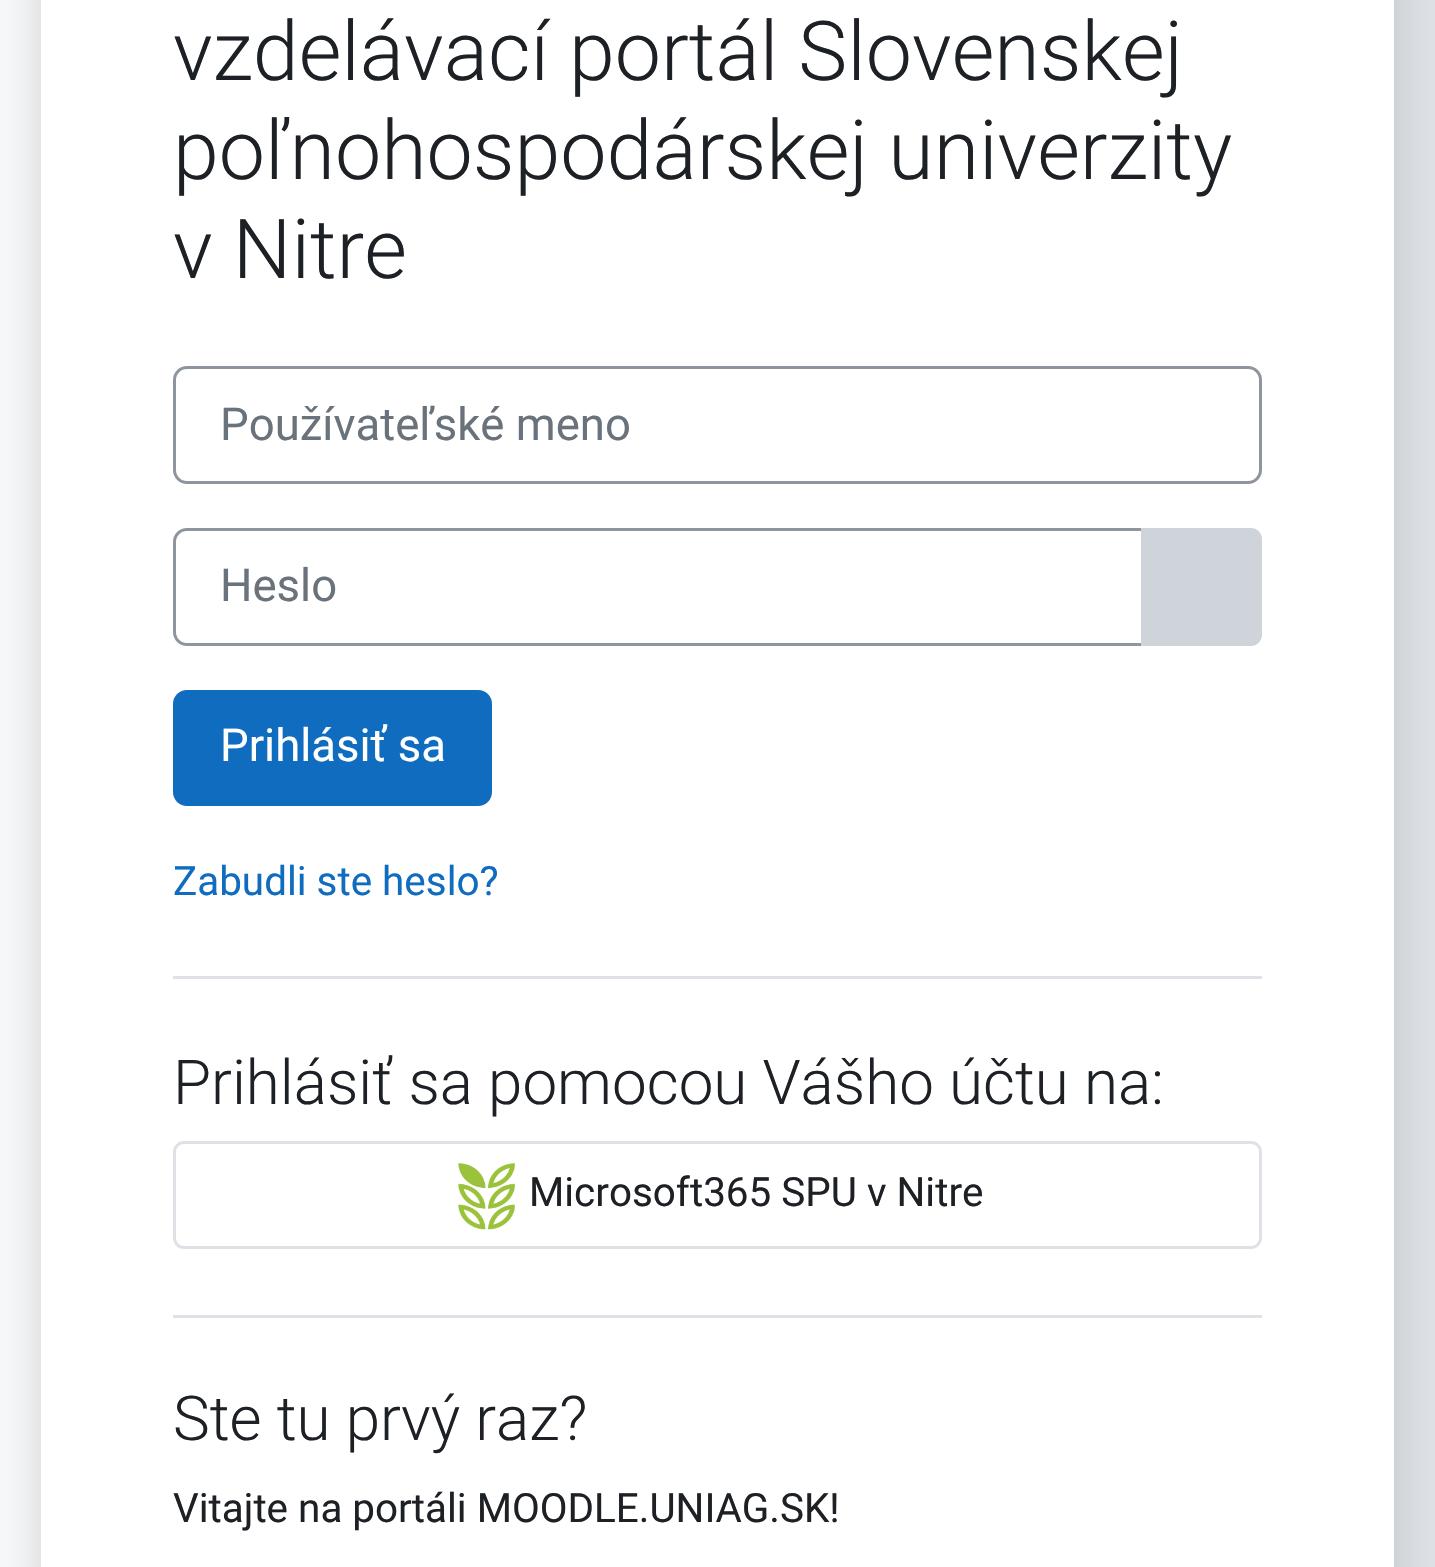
void draw(SkCanvas* canvas) {
    SkPaint paint;
    paint.setAntiAlias(true);
    canvas->clear(0xFFFFFFFF);
    {
        const SkColor colors[] = {0xFFF8F9FA, 0xFFDEE2E6};
        const float stops[] = {0, 1};
        const SkPoint ends[] = {{0, 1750}, {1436, 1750}};
        paint.setShader(SkGradientShader::MakeLinear(ends, colors, stops, 2, SkTileMode::kClamp));
        paint.setAlpha(255);
    }
    canvas->drawRect(SkRect::MakeXYWH(0, 0, 1435, 1567), paint);
    paint.setShader(nullptr);
    paint.setColor(0x26000000);
    paint.setMaskFilter(SkMaskFilter::MakeBlur(kNormal_SkBlurStyle, 22));
    canvas->drawRoundRect(SkRect::MakeXYWH(41, -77, 1353, 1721), 11, 11, paint);
    paint.setMaskFilter(nullptr);
    paint.setColor(0xFFFFFFFF);
    canvas->drawRect(SkRect::MakeXYWH(41, 0, 1353, 1567), paint);
    SkFont font1(fontMgr->matchFamilyStyle("Roboto", SkFontStyle(300, SkFontStyle::kNormal_Width, SkFontStyle::kUpright_Slant)), 82.5f);
    font1.setSubpixel(true);
    paint.setColor(0xFF1D2125);
    canvas->drawString("vzdelávací portál Slovenskej", 173, 80, font1, paint);
    canvas->drawString("poľnohospodárskej univerzity", 173, 179, font1, paint);
    canvas->drawString("v Nitre", 173, 278, font1, paint);
    paint.setStyle(SkPaint::kStroke_Style);
    paint.setStrokeWidth(3);
    paint.setColor(0xFF8F959E);
    canvas->drawRoundRect(SkRect::MakeXYWH(174.5f, 367.5f, 1086, 115), 12.5f, 12.5f, paint);
    SkFont font2(fontMgr->matchFamilyStyle("Roboto", SkFontStyle::Normal()), 45.5f);
    font2.setSubpixel(true);
    paint.setStyle(SkPaint::kFill_Style);
    paint.setColor(0xFF6A737B);
    canvas->drawString("Používateľské meno", 220, 440, font2, paint);
    paint.setStyle(SkPaint::kStroke_Style);
    paint.setColor(0xFF8F959E);
    canvas->drawPath(SkPathBuilder().moveTo(187, 529.5f).lineTo(1142.5f, 529.5f).lineTo(1142.5f, 644.5f).lineTo(187, 644.5f).cubicTo(180, 644.5f, 174.5f, 639, 174.5f, 632).lineTo(174.5f, 542).cubicTo(174.5f, 535, 180, 529.5f, 187, 529.5f).close().detach(), paint);
    paint.setStyle(SkPaint::kFill_Style);
    paint.setColor(0xFF6A737B);
    canvas->drawString("Heslo", 220, 601, font2, paint);
    paint.setColor(0xFFCED4DA);
    canvas->drawPath(SkPathBuilder().moveTo(1142.5f, 529.5f).lineTo(1251, 529.5f).cubicTo(1256, 529.5f, 1260.5f, 534, 1260.5f, 539).lineTo(1260.5f, 635).cubicTo(1260.5f, 640, 1256, 644.5f, 1251, 644.5f).lineTo(1142.5f, 644.5f).close().detach(), paint);
    paint.setStyle(SkPaint::kStroke_Style);
    canvas->drawPath(SkPathBuilder().moveTo(1142.5f, 529.5f).lineTo(1251, 529.5f).cubicTo(1256, 529.5f, 1260.5f, 534, 1260.5f, 539).lineTo(1260.5f, 635).cubicTo(1260.5f, 640, 1256, 644.5f, 1251, 644.5f).lineTo(1142.5f, 644.5f).close().detach(), paint);
    paint.setStyle(SkPaint::kFill_Style);
    paint.setColor(0xFF0F6CBF);
    canvas->drawRoundRect(SkRect::MakeXYWH(174.5f, 691.5f, 316, 113), 12.5f, 12.5f, paint);
    paint.setStyle(SkPaint::kStroke_Style);
    canvas->drawRoundRect(SkRect::MakeXYWH(174.5f, 691.5f, 316, 113), 12.5f, 12.5f, paint);
    paint.setStyle(SkPaint::kFill_Style);
    paint.setColor(0xFFFFFFFF);
    canvas->drawString("Prihlásiť sa", 220, 761, font2, paint);
    SkFont font3(fontMgr->matchFamilyStyle("Roboto", SkFontStyle::Normal()), 40.4f);
    font3.setSubpixel(true);
    paint.setColor(0xFF0F6CBF);
    canvas->drawString("Zabudli ste heslo?", 173, 895, font3, paint);
    paint.setColor(0xFFDEE2E6);
    canvas->drawRect(SkRect::MakeXYWH(173, 976, 1089, 3), paint);
    SkFont font4(fontMgr->matchFamilyStyle("Roboto", SkFontStyle(300, SkFontStyle::kNormal_Width, SkFontStyle::kUpright_Slant)), 61.9f);
    font4.setSubpixel(true);
    paint.setColor(0xFF1D2125);
    canvas->drawString("Prihlásiť sa pomocou Vášho účtu na:", 173, 1104, font4, paint);
    paint.setStyle(SkPaint::kStroke_Style);
    paint.setColor(0xFFDEE2E6);
    canvas->drawRoundRect(SkRect::MakeXYWH(174.5f, 1142.5f, 1086, 105), 9.5f, 9.5f, paint);
    canvas->drawImageRect(SkImages::DeferredFromEncodedData(SkData::MakeFromFileName("img1.png")), SkRect::MakeXYWH(458, 1163, 57, 67), SkSamplingOptions());
    paint.setStyle(SkPaint::kFill_Style);
    paint.setColor(0xFF1D2125);
    canvas->drawString("Microsoft365 SPU v Nitre", 529, 1206, font3, paint);
    paint.setColor(0xFFDEE2E6);
    canvas->drawRect(SkRect::MakeXYWH(173, 1315, 1089, 3), paint);
    paint.setColor(0xFF1D2125);
    canvas->drawString("Ste tu prvý raz?", 173, 1440, font4, paint);
    canvas->drawString("Vitajte na portáli MOODLE.UNIAG.SK!", 173, 1522, font3, paint);
}
